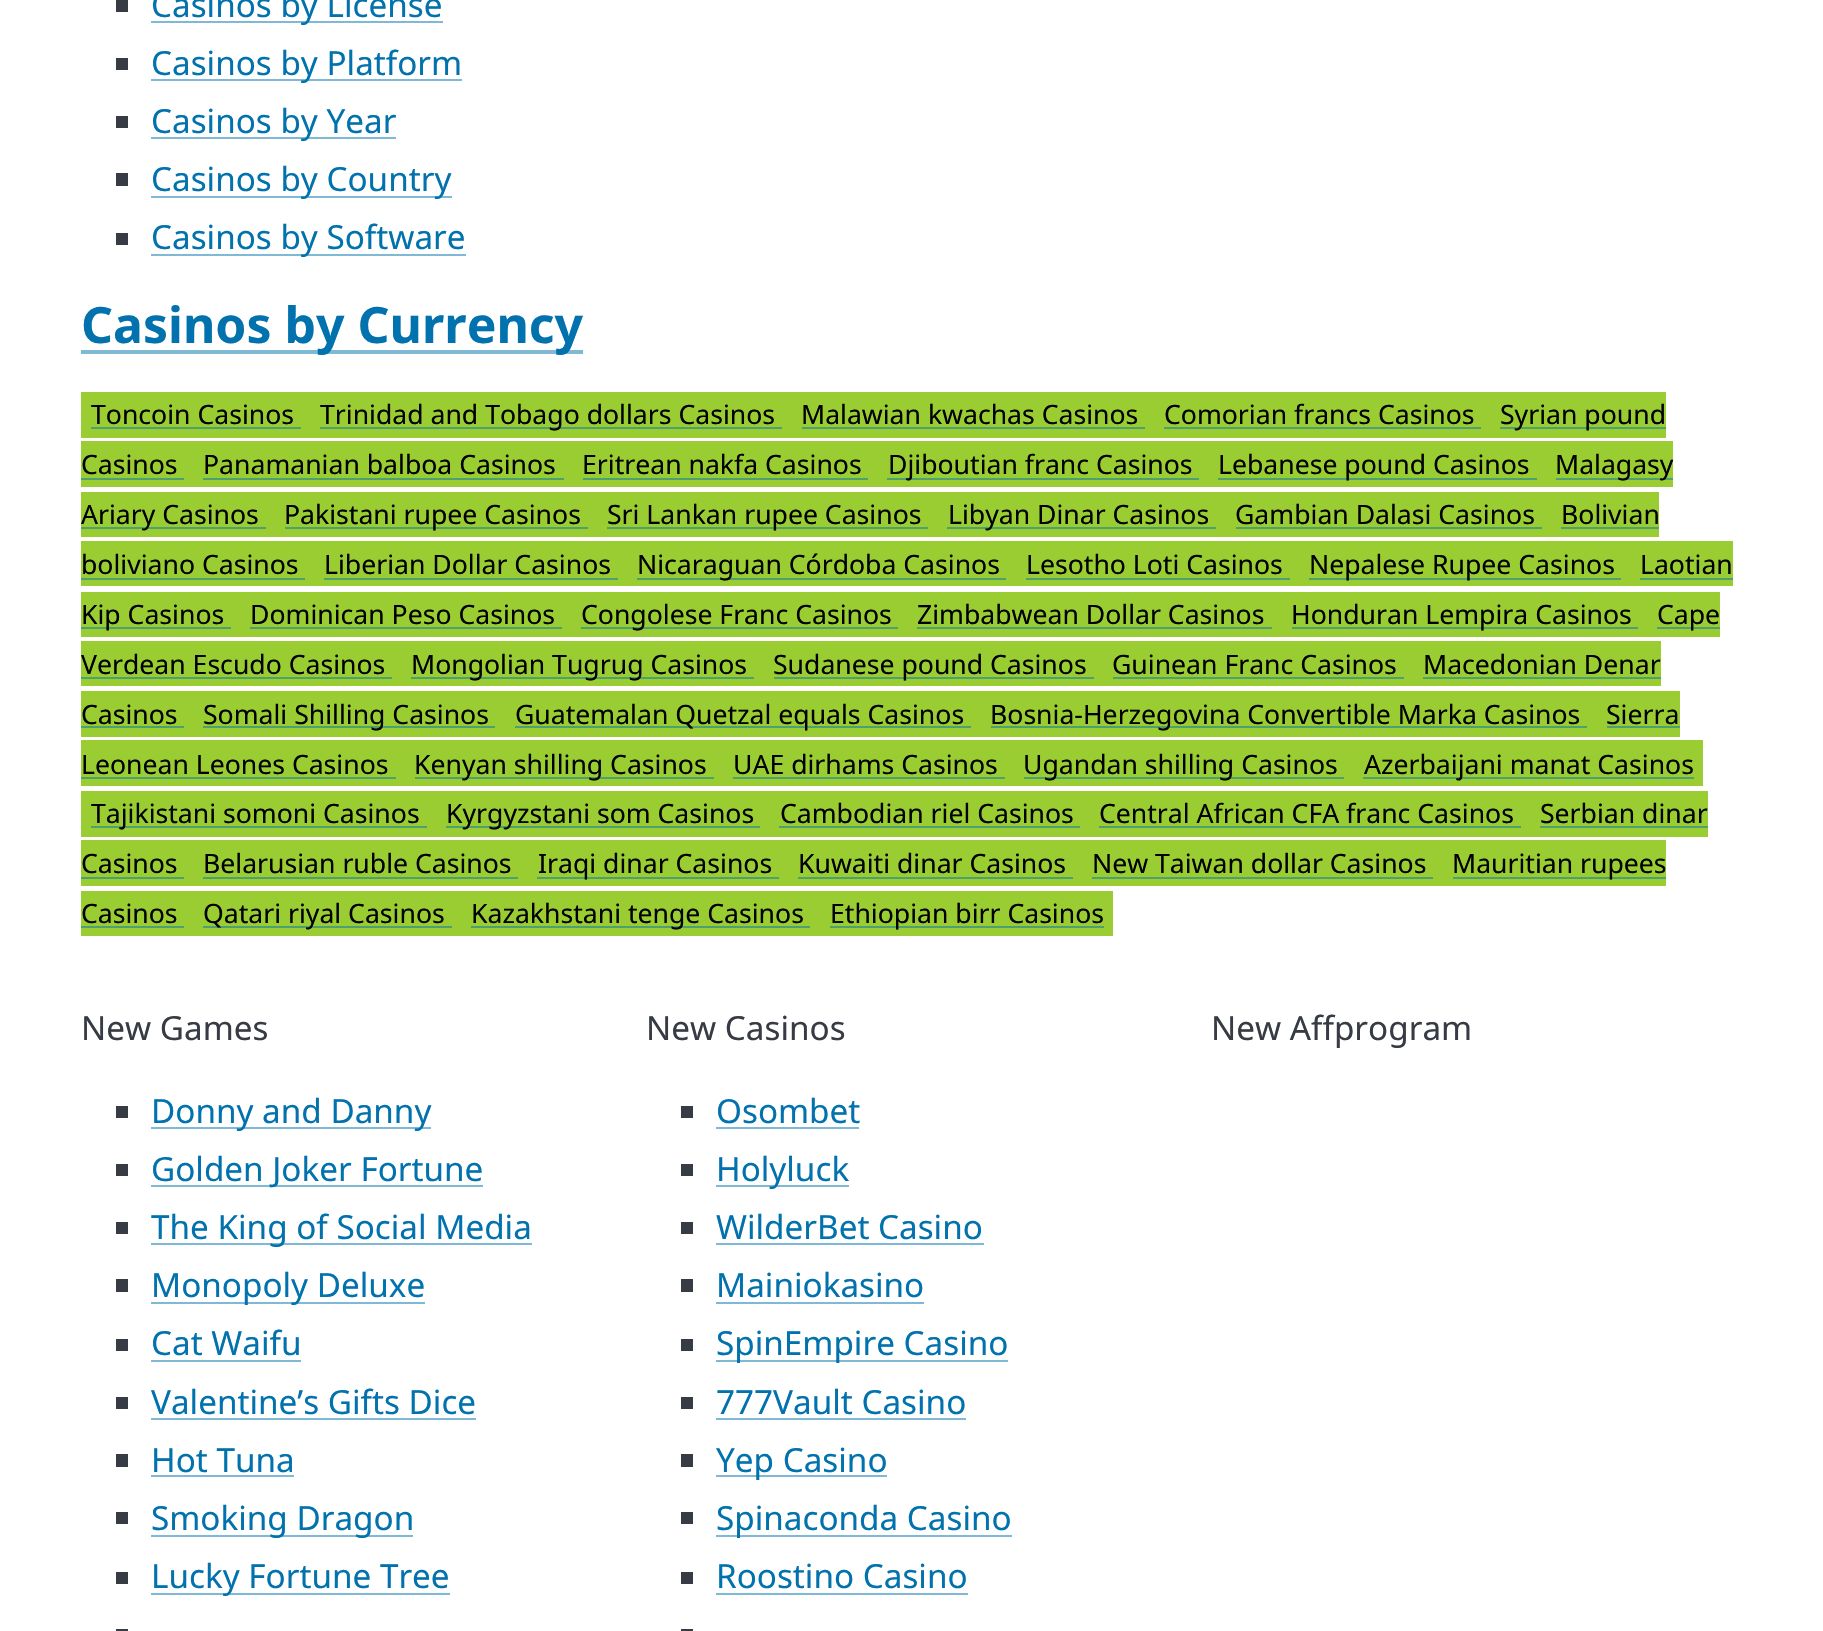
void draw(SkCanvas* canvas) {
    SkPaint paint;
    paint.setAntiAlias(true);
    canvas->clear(0xFFFFFFFF);
    paint.setColor(0xFF373C44);
    canvas->drawRect(SkRect::MakeXYWH(116, 0, 12, 12), paint);
    paint.setColor(0xFF80B9D6);
    canvas->drawRect(SkRect::MakeXYWH(151, 21, 292, 2), paint);
    SkFont font1(fontMgr->matchFamilyStyle("Noto Sans", SkFontStyle::Normal()), 33.25f);
    font1.setSubpixel(true);
    paint.setColor(0xFF0172AD);
    canvas->drawString("Casinos by License", 151, 17, font1, paint);
    paint.setColor(0xFF373C44);
    canvas->drawRect(SkRect::MakeXYWH(116, 58, 12, 12), paint);
    paint.setColor(0xFF80B9D6);
    canvas->drawRect(SkRect::MakeXYWH(151, 79, 311, 2), paint);
    paint.setColor(0xFF0172AD);
    canvas->drawString("Casinos by Platform", 151, 75, font1, paint);
    paint.setColor(0xFF373C44);
    canvas->drawRect(SkRect::MakeXYWH(116, 116, 12, 12), paint);
    paint.setColor(0xFF80B9D6);
    canvas->drawRect(SkRect::MakeXYWH(151, 137, 245, 2), paint);
    paint.setColor(0xFF0172AD);
    canvas->drawString("Casinos by Year", 151, 133, font1, paint);
    paint.setColor(0xFF373C44);
    canvas->drawRect(SkRect::MakeXYWH(116, 173, 12, 13), paint);
    paint.setColor(0xFF80B9D6);
    canvas->drawRect(SkRect::MakeXYWH(151, 196, 301, 2), paint);
    paint.setColor(0xFF0172AD);
    canvas->drawString("Casinos by Country", 151, 191, font1, paint);
    paint.setColor(0xFF373C44);
    canvas->drawRect(SkRect::MakeXYWH(116, 233, 12, 12), paint);
    paint.setColor(0xFF80B9D6);
    canvas->drawRect(SkRect::MakeXYWH(151, 254, 315, 2), paint);
    paint.setColor(0xFF0172AD);
    canvas->drawString("Casinos by Software", 151, 249, font1, paint);
    paint.setColor(0xFF80B9D6);
    canvas->drawRect(SkRect::MakeXYWH(81, 350, 502, 4), paint);
    SkFont font2(fontMgr->matchFamilyStyle("Noto Sans", SkFontStyle::Bold()), 49.9f);
    font2.setSubpixel(true);
    paint.setColor(0xFF0172AD);
    canvas->drawString("Casinos by Currency", 81, 343, font2, paint);
    paint.setColor(0xFF9ACD32);
    canvas->drawRect(SkRect::MakeXYWH(81, 392, 1585, 46), paint);
    SkFont font3(fontMgr->matchFamilyStyle("Noto Sans", SkFontStyle::Normal()), 26.6f);
    font3.setSubpixel(true);
    paint.setColor(0xFF000000);
    canvas->drawString("Toncoin Casinos", 91, 424, font3, paint);
    paint.setColor(0xFF4EA070);
    canvas->drawRect(SkRect::MakeXYWH(91, 427, 210, 2), paint);
    canvas->drawRect(SkRect::MakeXYWH(320, 427, 462, 2), paint);
    paint.setColor(0xFF000000);
    canvas->drawString("Trinidad and Tobago dollars Casinos", 320, 424, font3, paint);
    canvas->drawString("Malawian kwachas Casinos", 801, 424, font3, paint);
    paint.setColor(0xFF4EA070);
    canvas->drawRect(SkRect::MakeXYWH(802, 427, 343, 2), paint);
    paint.setColor(0xFF000000);
    canvas->drawString("Comorian francs Casinos", 1164, 424, font3, paint);
    paint.setColor(0xFF4EA070);
    canvas->drawRect(SkRect::MakeXYWH(1164, 427, 317, 2), paint);
    canvas->drawRect(SkRect::MakeXYWH(1500, 427, 166, 2), paint);
    paint.setColor(0xFF000000);
    canvas->drawString("Syrian pound", 1500, 424, font3, paint);
    paint.setColor(0xFF9ACD32);
    canvas->drawRect(SkRect::MakeXYWH(81, 441, 1592, 46), paint);
    paint.setColor(0xFF000000);
    canvas->drawString("Casinos", 81, 474, font3, paint);
    paint.setColor(0xFF4EA070);
    canvas->drawRect(SkRect::MakeXYWH(81, 478, 103, 2), paint);
    paint.setColor(0xFF000000);
    canvas->drawString("Panamanian balboa Casinos", 203, 474, font3, paint);
    paint.setColor(0xFF4EA070);
    canvas->drawRect(SkRect::MakeXYWH(203, 478, 361, 2), paint);
    paint.setColor(0xFF000000);
    canvas->drawString("Eritrean nakfa Casinos", 582, 474, font3, paint);
    paint.setColor(0xFF4EA070);
    canvas->drawRect(SkRect::MakeXYWH(583, 478, 285, 2), paint);
    canvas->drawRect(SkRect::MakeXYWH(887, 478, 312, 2), paint);
    paint.setColor(0xFF000000);
    canvas->drawString("Djiboutian franc Casinos", 888, 474, font3, paint);
    paint.setColor(0xFF4EA070);
    canvas->drawRect(SkRect::MakeXYWH(1218, 478, 319, 2), paint);
    paint.setColor(0xFF000000);
    canvas->drawString("Lebanese pound Casinos", 1218, 474, font3, paint);
    paint.setColor(0xFF4EA070);
    canvas->drawRect(SkRect::MakeXYWH(1556, 478, 117, 2), paint);
    paint.setColor(0xFF000000);
    canvas->drawString("Malagasy", 1555, 474, font3, paint);
    paint.setColor(0xFF9ACD32);
    canvas->drawRect(SkRect::MakeXYWH(81, 492, 1578, 45), paint);
    paint.setColor(0xFF4EA070);
    canvas->drawRect(SkRect::MakeXYWH(81, 527, 185, 2), paint);
    paint.setColor(0xFF000000);
    canvas->drawString("Ariary Casinos", 81, 524, font3, paint);
    paint.setColor(0xFF4EA070);
    canvas->drawRect(SkRect::MakeXYWH(285, 527, 303, 2), paint);
    paint.setColor(0xFF000000);
    canvas->drawString("Pakistani rupee Casinos", 284, 524, font3, paint);
    paint.setColor(0xFF4EA070);
    canvas->drawRect(SkRect::MakeXYWH(607, 527, 321, 2), paint);
    paint.setColor(0xFF000000);
    canvas->drawString("Sri Lankan rupee Casinos", 607, 524, font3, paint);
    paint.setColor(0xFF4EA070);
    canvas->drawRect(SkRect::MakeXYWH(947, 527, 269, 2), paint);
    paint.setColor(0xFF000000);
    canvas->drawString("Libyan Dinar Casinos", 948, 524, font3, paint);
    canvas->drawString("Gambian Dalasi Casinos", 1235, 524, font3, paint);
    paint.setColor(0xFF4EA070);
    canvas->drawRect(SkRect::MakeXYWH(1236, 527, 306, 2), paint);
    paint.setColor(0xFF000000);
    canvas->drawString("Bolivian", 1561, 524, font3, paint);
    paint.setColor(0xFF4EA070);
    canvas->drawRect(SkRect::MakeXYWH(1561, 527, 98, 2), paint);
    paint.setColor(0xFF9ACD32);
    canvas->drawRect(SkRect::MakeXYWH(81, 541, 1652, 45), paint);
    paint.setColor(0xFF000000);
    canvas->drawString("boliviano Casinos", 81, 574, font3, paint);
    paint.setColor(0xFF4EA070);
    canvas->drawRect(SkRect::MakeXYWH(81, 578, 224, 2), paint);
    paint.setColor(0xFF000000);
    canvas->drawString("Liberian Dollar Casinos", 324, 574, font3, paint);
    paint.setColor(0xFF4EA070);
    canvas->drawRect(SkRect::MakeXYWH(324, 578, 294, 2), paint);
    canvas->drawRect(SkRect::MakeXYWH(637, 578, 369, 2), paint);
    paint.setColor(0xFF000000);
    canvas->drawString("Nicaraguan Córdoba Casinos", 637, 574, font3, paint);
    canvas->drawString("Lesotho Loti Casinos", 1026, 574, font3, paint);
    paint.setColor(0xFF4EA070);
    canvas->drawRect(SkRect::MakeXYWH(1026, 578, 264, 2), paint);
    canvas->drawRect(SkRect::MakeXYWH(1309, 578, 312, 2), paint);
    paint.setColor(0xFF000000);
    canvas->drawString("Nepalese Rupee Casinos", 1309, 574, font3, paint);
    canvas->drawString("Laotian", 1640, 574, font3, paint);
    paint.setColor(0xFF4EA070);
    canvas->drawRect(SkRect::MakeXYWH(1640, 578, 93, 2), paint);
    paint.setColor(0xFF9ACD32);
    canvas->drawRect(SkRect::MakeXYWH(81, 592, 1639, 45), paint);
    paint.setColor(0xFF4EA070);
    canvas->drawRect(SkRect::MakeXYWH(81, 627, 150, 2), paint);
    paint.setColor(0xFF000000);
    canvas->drawString("Kip Casinos", 81, 624, font3, paint);
    canvas->drawString("Dominican Peso Casinos", 250, 624, font3, paint);
    paint.setColor(0xFF4EA070);
    canvas->drawRect(SkRect::MakeXYWH(250, 627, 312, 2), paint);
    canvas->drawRect(SkRect::MakeXYWH(581, 627, 317, 2), paint);
    paint.setColor(0xFF000000);
    canvas->drawString("Congolese Franc Casinos", 581, 624, font3, paint);
    canvas->drawString("Zimbabwean Dollar Casinos", 917, 624, font3, paint);
    paint.setColor(0xFF4EA070);
    canvas->drawRect(SkRect::MakeXYWH(917, 627, 355, 2), paint);
    canvas->drawRect(SkRect::MakeXYWH(1292, 627, 346, 2), paint);
    paint.setColor(0xFF000000);
    canvas->drawString("Honduran Lempira Casinos", 1291, 624, font3, paint);
    paint.setColor(0xFF4EA070);
    canvas->drawRect(SkRect::MakeXYWH(1657, 627, 63, 2), paint);
    paint.setColor(0xFF000000);
    canvas->drawString("Cape", 1657, 624, font3, paint);
    paint.setColor(0xFF9ACD32);
    canvas->drawRect(SkRect::MakeXYWH(81, 641, 1580, 45), paint);
    paint.setColor(0xFF000000);
    canvas->drawString("Verdean Escudo Casinos", 81, 674, font3, paint);
    paint.setColor(0xFF4EA070);
    canvas->drawRect(SkRect::MakeXYWH(81, 677, 311, 2), paint);
    canvas->drawRect(SkRect::MakeXYWH(411, 677, 343, 2), paint);
    paint.setColor(0xFF000000);
    canvas->drawString("Mongolian Tugrug Casinos", 411, 674, font3, paint);
    paint.setColor(0xFF4EA070);
    canvas->drawRect(SkRect::MakeXYWH(774, 677, 320, 2), paint);
    paint.setColor(0xFF000000);
    canvas->drawString("Sudanese pound Casinos", 773, 674, font3, paint);
    canvas->drawString("Guinean Franc Casinos", 1112, 674, font3, paint);
    paint.setColor(0xFF4EA070);
    canvas->drawRect(SkRect::MakeXYWH(1113, 677, 291, 2), paint);
    paint.setColor(0xFF000000);
    canvas->drawString("Macedonian Denar", 1423, 674, font3, paint);
    paint.setColor(0xFF4EA070);
    canvas->drawRect(SkRect::MakeXYWH(1423, 677, 238, 2), paint);
    paint.setColor(0xFF9ACD32);
    canvas->drawRect(SkRect::MakeXYWH(81, 691, 1599, 46), paint);
    paint.setColor(0xFF000000);
    canvas->drawString("Casinos", 81, 724, font3, paint);
    paint.setColor(0xFF4EA070);
    canvas->drawRect(SkRect::MakeXYWH(81, 726, 103, 2), paint);
    canvas->drawRect(SkRect::MakeXYWH(203, 726, 292, 2), paint);
    paint.setColor(0xFF000000);
    canvas->drawString("Somali Shilling Casinos", 203, 724, font3, paint);
    paint.setColor(0xFF4EA070);
    canvas->drawRect(SkRect::MakeXYWH(515, 726, 456, 2), paint);
    paint.setColor(0xFF000000);
    canvas->drawString("Guatemalan Quetzal equals Casinos", 515, 724, font3, paint);
    paint.setColor(0xFF4EA070);
    canvas->drawRect(SkRect::MakeXYWH(991, 726, 596, 2), paint);
    paint.setColor(0xFF000000);
    canvas->drawString("Bosnia-Herzegovina Convertible Marka Casinos", 990, 724, font3, paint);
    canvas->drawString("Sierra", 1606, 724, font3, paint);
    paint.setColor(0xFF4EA070);
    canvas->drawRect(SkRect::MakeXYWH(1607, 726, 73, 2), paint);
    paint.setColor(0xFF9ACD32);
    canvas->drawRect(SkRect::MakeXYWH(81, 740, 1622, 46), paint);
    paint.setColor(0xFF000000);
    canvas->drawString("Leonean Leones Casinos", 81, 774, font3, paint);
    paint.setColor(0xFF4EA070);
    canvas->drawRect(SkRect::MakeXYWH(81, 777, 315, 2), paint);
    canvas->drawRect(SkRect::MakeXYWH(415, 777, 299, 2), paint);
    paint.setColor(0xFF000000);
    canvas->drawString("Kenyan shilling Casinos", 414, 774, font3, paint);
    canvas->drawString("UAE dirhams Casinos", 733, 774, font3, paint);
    paint.setColor(0xFF4EA070);
    canvas->drawRect(SkRect::MakeXYWH(733, 777, 272, 2), paint);
    canvas->drawRect(SkRect::MakeXYWH(1024, 777, 320, 2), paint);
    paint.setColor(0xFF000000);
    canvas->drawString("Ugandan shilling Casinos", 1023, 774, font3, paint);
    paint.setColor(0xFF4EA070);
    canvas->drawRect(SkRect::MakeXYWH(1363, 777, 331, 2), paint);
    paint.setColor(0xFF000000);
    canvas->drawString("Azerbaijani manat Casinos", 1364, 774, font3, paint);
    paint.setColor(0xFF9ACD32);
    canvas->drawRect(SkRect::MakeXYWH(81, 791, 1627, 46), paint);
    paint.setColor(0xFF4EA070);
    canvas->drawRect(SkRect::MakeXYWH(91, 826, 336, 2), paint);
    paint.setColor(0xFF000000);
    canvas->drawString("Tajikistani somoni Casinos", 91, 823, font3, paint);
    paint.setColor(0xFF4EA070);
    canvas->drawRect(SkRect::MakeXYWH(446, 826, 314, 2), paint);
    paint.setColor(0xFF000000);
    canvas->drawString("Kyrgyzstani som Casinos", 446, 823, font3, paint);
    canvas->drawString("Cambodian riel Casinos", 780, 823, font3, paint);
    paint.setColor(0xFF4EA070);
    canvas->drawRect(SkRect::MakeXYWH(779, 826, 301, 2), paint);
    paint.setColor(0xFF000000);
    canvas->drawString("Central African CFA franc Casinos", 1099, 823, font3, paint);
    paint.setColor(0xFF4EA070);
    canvas->drawRect(SkRect::MakeXYWH(1099, 826, 422, 2), paint);
    paint.setColor(0xFF000000);
    canvas->drawString("Serbian dinar", 1540, 823, font3, paint);
    paint.setColor(0xFF4EA070);
    canvas->drawRect(SkRect::MakeXYWH(1540, 826, 168, 2), paint);
    paint.setColor(0xFF9ACD32);
    canvas->drawRect(SkRect::MakeXYWH(81, 840, 1585, 46), paint);
    paint.setColor(0xFF000000);
    canvas->drawString("Casinos", 81, 873, font3, paint);
    paint.setColor(0xFF4EA070);
    canvas->drawRect(SkRect::MakeXYWH(81, 877, 103, 2), paint);
    paint.setColor(0xFF000000);
    canvas->drawString("Belarusian ruble Casinos", 203, 873, font3, paint);
    paint.setColor(0xFF4EA070);
    canvas->drawRect(SkRect::MakeXYWH(203, 877, 315, 2), paint);
    canvas->drawRect(SkRect::MakeXYWH(537, 877, 242, 2), paint);
    paint.setColor(0xFF000000);
    canvas->drawString("Iraqi dinar Casinos", 538, 873, font3, paint);
    canvas->drawString("Kuwaiti dinar Casinos", 798, 873, font3, paint);
    paint.setColor(0xFF4EA070);
    canvas->drawRect(SkRect::MakeXYWH(798, 877, 275, 2), paint);
    paint.setColor(0xFF000000);
    canvas->drawString("New Taiwan dollar Casinos", 1092, 873, font3, paint);
    paint.setColor(0xFF4EA070);
    canvas->drawRect(SkRect::MakeXYWH(1092, 877, 341, 2), paint);
    canvas->drawRect(SkRect::MakeXYWH(1453, 877, 213, 2), paint);
    paint.setColor(0xFF000000);
    canvas->drawString("Mauritian rupees", 1452, 873, font3, paint);
    paint.setColor(0xFF9ACD32);
    canvas->drawRect(SkRect::MakeXYWH(81, 891, 1032, 45), paint);
    paint.setColor(0xFF000000);
    canvas->drawString("Casinos", 81, 923, font3, paint);
    paint.setColor(0xFF4EA070);
    canvas->drawRect(SkRect::MakeXYWH(81, 926, 103, 2), paint);
    canvas->drawRect(SkRect::MakeXYWH(203, 926, 249, 2), paint);
    paint.setColor(0xFF000000);
    canvas->drawString("Qatari riyal Casinos", 203, 923, font3, paint);
    paint.setColor(0xFF4EA070);
    canvas->drawRect(SkRect::MakeXYWH(471, 926, 339, 2), paint);
    paint.setColor(0xFF000000);
    canvas->drawString("Kazakhstani tenge Casinos", 471, 923, font3, paint);
    paint.setColor(0xFF4EA070);
    canvas->drawRect(SkRect::MakeXYWH(830, 926, 274, 2), paint);
    paint.setColor(0xFF000000);
    canvas->drawString("Ethiopian birr Casinos", 830, 923, font3, paint);
    paint.setColor(0xFF373C44);
    canvas->drawString("New Games", 81, 1040, font1, paint);
    canvas->drawRect(SkRect::MakeXYWH(116, 1106, 12, 12), paint);
    paint.setColor(0xFF80B9D6);
    canvas->drawRect(SkRect::MakeXYWH(151, 1127, 280, 2), paint);
    paint.setColor(0xFF0172AD);
    canvas->drawString("Donny and Danny", 151, 1123, font1, paint);
    paint.setColor(0xFF373C44);
    canvas->drawRect(SkRect::MakeXYWH(116, 1164, 12, 12), paint);
    paint.setColor(0xFF80B9D6);
    canvas->drawRect(SkRect::MakeXYWH(151, 1185, 332, 2), paint);
    paint.setColor(0xFF0172AD);
    canvas->drawString("Golden Joker Fortune", 151, 1181, font1, paint);
    paint.setColor(0xFF373C44);
    canvas->drawRect(SkRect::MakeXYWH(116, 1222, 12, 12), paint);
    paint.setColor(0xFF80B9D6);
    canvas->drawRect(SkRect::MakeXYWH(151, 1243, 381, 2), paint);
    paint.setColor(0xFF0172AD);
    canvas->drawString("The King of Social Media", 151, 1239, font1, paint);
    paint.setColor(0xFF373C44);
    canvas->drawRect(SkRect::MakeXYWH(116, 1279, 12, 13), paint);
    paint.setColor(0xFF80B9D6);
    canvas->drawRect(SkRect::MakeXYWH(151, 1302, 274, 2), paint);
    paint.setColor(0xFF0172AD);
    canvas->drawString("Monopoly Deluxe", 151, 1297, font1, paint);
    paint.setColor(0xFF373C44);
    canvas->drawRect(SkRect::MakeXYWH(116, 1339, 12, 12), paint);
    paint.setColor(0xFF0172AD);
    canvas->drawString("Cat Waifu", 151, 1355, font1, paint);
    paint.setColor(0xFF80B9D6);
    canvas->drawRect(SkRect::MakeXYWH(151, 1360, 150, 2), paint);
    paint.setColor(0xFF373C44);
    canvas->drawRect(SkRect::MakeXYWH(116, 1397, 12, 12), paint);
    paint.setColor(0xFF0172AD);
    canvas->drawString("Valentine’s Gifts Dice", 151, 1414, font1, paint);
    paint.setColor(0xFF80B9D6);
    canvas->drawRect(SkRect::MakeXYWH(151, 1418, 325, 2), paint);
    paint.setColor(0xFF373C44);
    canvas->drawRect(SkRect::MakeXYWH(116, 1454, 12, 13), paint);
    paint.setColor(0xFF0172AD);
    canvas->drawString("Hot Tuna", 151, 1472, font1, paint);
    paint.setColor(0xFF80B9D6);
    canvas->drawRect(SkRect::MakeXYWH(151, 1475, 143, 2), paint);
    paint.setColor(0xFF373C44);
    canvas->drawRect(SkRect::MakeXYWH(116, 1512, 12, 12), paint);
    paint.setColor(0xFF80B9D6);
    canvas->drawRect(SkRect::MakeXYWH(151, 1535, 262, 2), paint);
    paint.setColor(0xFF0172AD);
    canvas->drawString("Smoking Dragon", 151, 1530, font1, paint);
    paint.setColor(0xFF373C44);
    canvas->drawRect(SkRect::MakeXYWH(116, 1572, 12, 12), paint);
    paint.setColor(0xFF80B9D6);
    canvas->drawRect(SkRect::MakeXYWH(151, 1593, 299, 2), paint);
    paint.setColor(0xFF0172AD);
    canvas->drawString("Lucky Fortune Tree", 151, 1588, font1, paint);
    paint.setColor(0xFF373C44);
    canvas->drawRect(SkRect::MakeXYWH(116, 1629, 12, 2), paint);
    canvas->drawString("New Casinos", 646, 1040, font1, paint);
    canvas->drawRect(SkRect::MakeXYWH(681, 1106, 12, 12), paint);
    paint.setColor(0xFF0172AD);
    canvas->drawString("Osombet", 716, 1123, font1, paint);
    paint.setColor(0xFF80B9D6);
    canvas->drawRect(SkRect::MakeXYWH(716, 1127, 143, 2), paint);
    paint.setColor(0xFF373C44);
    canvas->drawRect(SkRect::MakeXYWH(681, 1164, 12, 12), paint);
    paint.setColor(0xFF80B9D6);
    canvas->drawRect(SkRect::MakeXYWH(716, 1185, 133, 2), paint);
    paint.setColor(0xFF0172AD);
    canvas->drawString("Holyluck", 716, 1181, font1, paint);
    paint.setColor(0xFF373C44);
    canvas->drawRect(SkRect::MakeXYWH(681, 1222, 12, 12), paint);
    paint.setColor(0xFF0172AD);
    canvas->drawString("WilderBet Casino", 716, 1239, font1, paint);
    paint.setColor(0xFF80B9D6);
    canvas->drawRect(SkRect::MakeXYWH(716, 1243, 268, 2), paint);
    paint.setColor(0xFF373C44);
    canvas->drawRect(SkRect::MakeXYWH(681, 1279, 12, 13), paint);
    paint.setColor(0xFF0172AD);
    canvas->drawString("Mainiokasino", 716, 1297, font1, paint);
    paint.setColor(0xFF80B9D6);
    canvas->drawRect(SkRect::MakeXYWH(716, 1302, 208, 2), paint);
    paint.setColor(0xFF373C44);
    canvas->drawRect(SkRect::MakeXYWH(681, 1339, 12, 12), paint);
    paint.setColor(0xFF80B9D6);
    canvas->drawRect(SkRect::MakeXYWH(716, 1360, 292, 2), paint);
    paint.setColor(0xFF0172AD);
    canvas->drawString("SpinEmpire Casino", 716, 1355, font1, paint);
    paint.setColor(0xFF373C44);
    canvas->drawRect(SkRect::MakeXYWH(681, 1397, 12, 12), paint);
    paint.setColor(0xFF0172AD);
    canvas->drawString("777Vault Casino", 716, 1414, font1, paint);
    paint.setColor(0xFF80B9D6);
    canvas->drawRect(SkRect::MakeXYWH(716, 1418, 250, 2), paint);
    paint.setColor(0xFF373C44);
    canvas->drawRect(SkRect::MakeXYWH(681, 1454, 12, 13), paint);
    paint.setColor(0xFF80B9D6);
    canvas->drawRect(SkRect::MakeXYWH(716, 1475, 171, 2), paint);
    paint.setColor(0xFF0172AD);
    canvas->drawString("Yep Casino", 716, 1472, font1, paint);
    paint.setColor(0xFF373C44);
    canvas->drawRect(SkRect::MakeXYWH(681, 1512, 12, 12), paint);
    paint.setColor(0xFF80B9D6);
    canvas->drawRect(SkRect::MakeXYWH(716, 1535, 296, 2), paint);
    paint.setColor(0xFF0172AD);
    canvas->drawString("Spinaconda Casino", 716, 1530, font1, paint);
    paint.setColor(0xFF373C44);
    canvas->drawRect(SkRect::MakeXYWH(681, 1572, 12, 12), paint);
    paint.setColor(0xFF0172AD);
    canvas->drawString("Roostino Casino", 716, 1588, font1, paint);
    paint.setColor(0xFF80B9D6);
    canvas->drawRect(SkRect::MakeXYWH(716, 1593, 252, 2), paint);
    paint.setColor(0xFF373C44);
    canvas->drawRect(SkRect::MakeXYWH(681, 1629, 12, 2), paint);
    canvas->drawString("New Affprogram", 1211, 1040, font1, paint);
}
